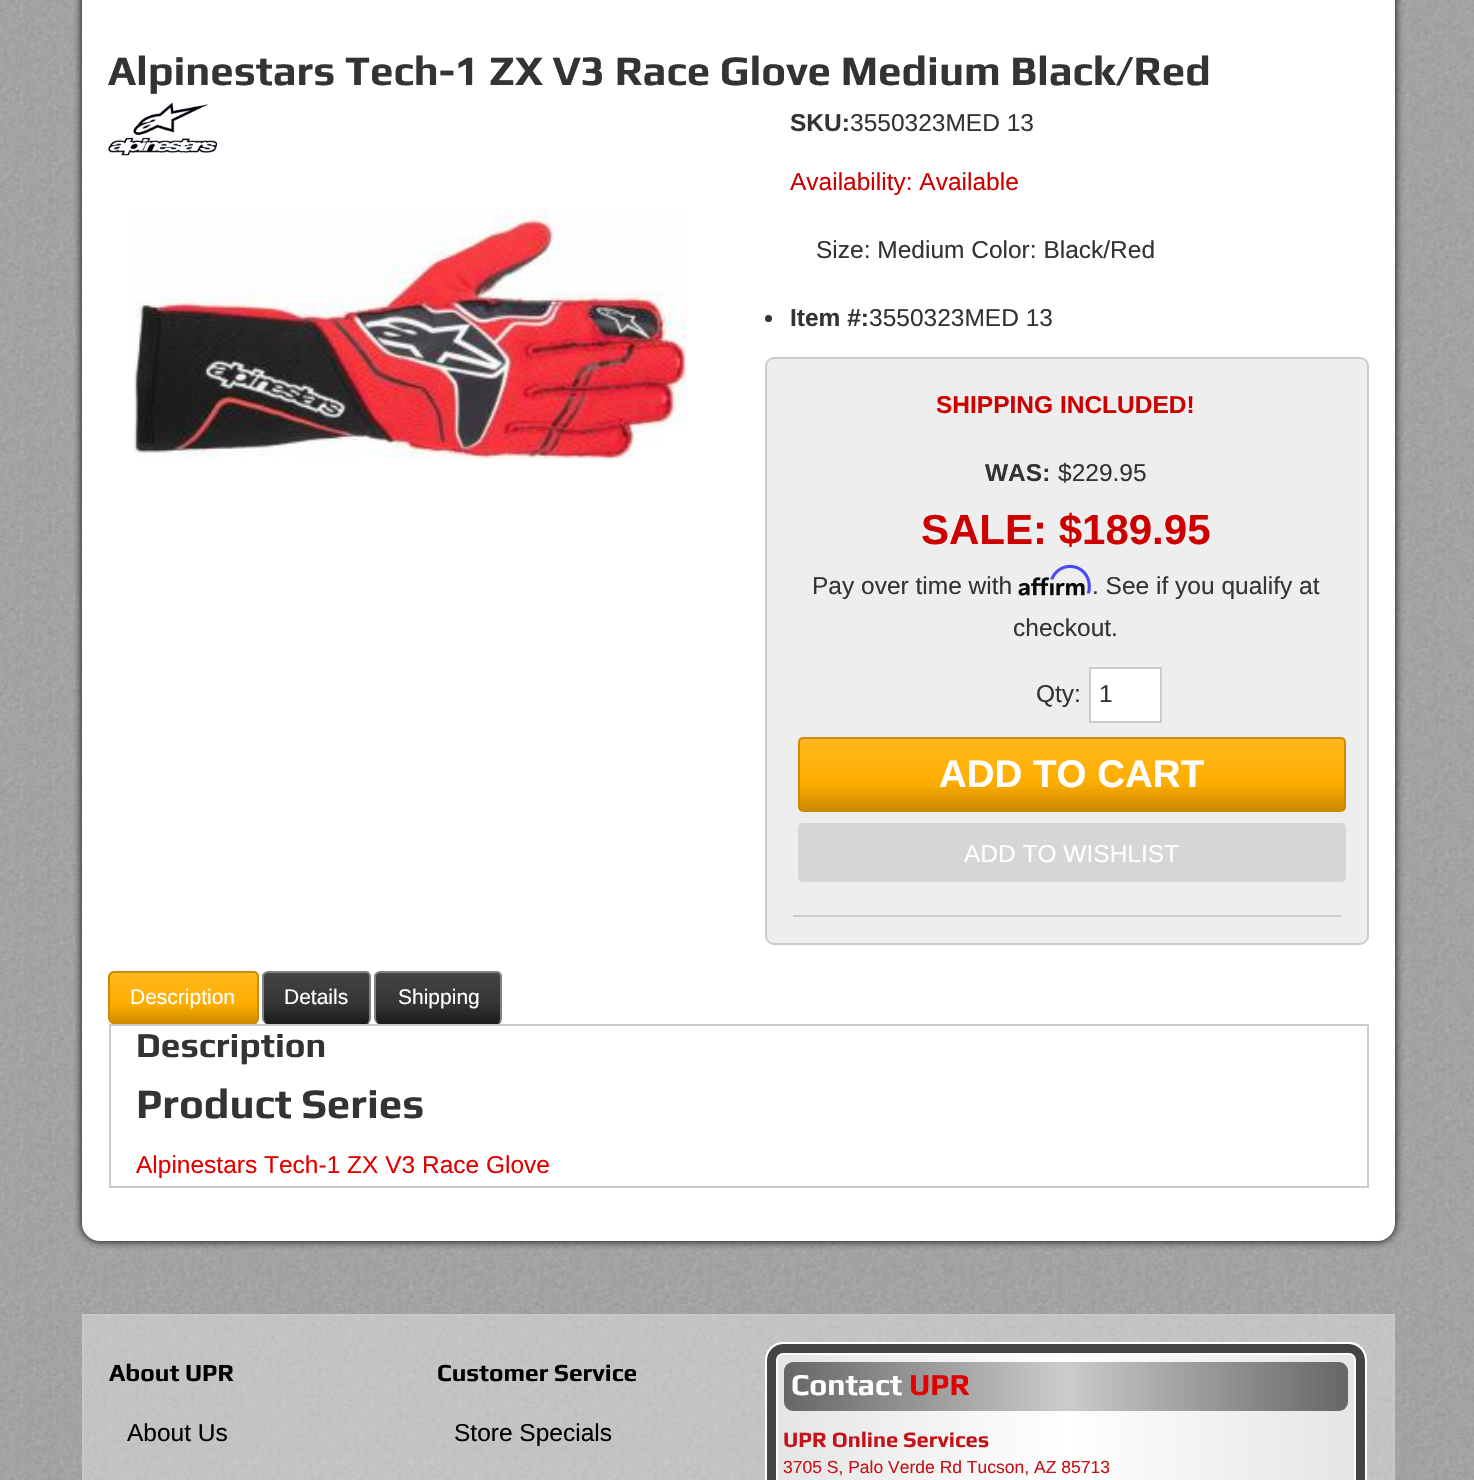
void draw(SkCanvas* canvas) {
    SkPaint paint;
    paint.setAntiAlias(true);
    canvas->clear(0xFFFFFFFF);
    canvas->drawImageRect(SkImages::DeferredFromEncodedData(SkData::MakeFromFileName("img1.png")), SkRect::MakeXYWH(0, 0, 1474, 1480), SkSamplingOptions());
    paint.setColor(0xFF000000);
    paint.setMaskFilter(SkMaskFilter::MakeBlur(kNormal_SkBlurStyle, 4.5f));
    canvas->drawRoundRect(SkRect::MakeXYWH(82, -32, 1313, 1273), 18, 18, paint);
    paint.setMaskFilter(nullptr);
    paint.setColor(0xFFFFFFFF);
    canvas->drawRoundRect(SkRect::MakeXYWH(82, -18, 1313, 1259), 18, 18, paint);
    SkFont font1(fontMgr->matchFamilyStyle("Play", SkFontStyle::Bold()), 42);
    font1.setSubpixel(true);
    paint.setColor(0xFF333333);
    canvas->drawString("Alpinestars Tech-1 ZX V3 Race Glove Medium Black/Red", 108, 85, font1, paint);
    canvas->drawImageRect(SkImages::DeferredFromEncodedData(SkData::MakeFromFileName("img2.png")), SkRect::MakeXYWH(108, 102, 109, 54), SkSamplingOptions());
    canvas->drawImageRect(SkImages::DeferredFromEncodedData(SkData::MakeFromFileName("img3.png")), SkRect::MakeXYWH(133, 208, 555, 252), SkSamplingOptions());
    SkFont font2(fontMgr->matchFamilyStyle("Liberation Sans", SkFontStyle::Bold()), 24.5f);
    font2.setSubpixel(true);
    canvas->drawString("SKU:", 790, 131, font2, paint);
    SkFont font3(fontMgr->matchFamilyStyle("Liberation Sans", SkFontStyle::Normal()), 24.5f);
    font3.setSubpixel(true);
    canvas->drawString("3550323MED 13", 850, 131, font3, paint);
    paint.setColor(0xFFCC0000);
    canvas->drawString("Availability: Available", 790, 190, font3, paint);
    paint.setColor(0xFF333333);
    canvas->drawString("Size: Medium Color: Black/Red", 816, 258, font3, paint);
    canvas->drawCircle(768.5f, 318.5f, 3.5f, paint);
    canvas->drawString("Item #:", 790, 326, font2, paint);
    canvas->drawString("3550323MED 13", 869, 326, font3, paint);
    paint.setColor(0xFFEEEEEE);
    canvas->drawRoundRect(SkRect::MakeXYWH(766, 358, 602, 586), 8, 8, paint);
    paint.setStyle(SkPaint::kStroke_Style);
    paint.setStrokeWidth(2);
    paint.setColor(0xFFCCCCCC);
    canvas->drawRoundRect(SkRect::MakeXYWH(766, 358, 602, 586), 8, 8, paint);
    paint.setStyle(SkPaint::kFill_Style);
    paint.setColor(0xFFCC0000);
    canvas->drawString("SHIPPING INCLUDED!", 936, 413, font2, paint);
    paint.setColor(0xFF333333);
    canvas->drawString("WAS:", 985, 481, font2, paint);
    canvas->drawString("$229.95", 1058, 481, font3, paint);
    SkFont font4(fontMgr->matchFamilyStyle("Liberation Sans", SkFontStyle::Bold()), 42);
    font4.setSubpixel(true);
    paint.setColor(0xFFCC0000);
    canvas->drawString("SALE: $189.95", 921, 544, font4, paint);
    paint.setColor(0xFF333333);
    canvas->drawString("Pay over time with", 812, 594, font3, paint);
    canvas->drawImageRect(SkImages::DeferredFromEncodedData(SkData::MakeFromFileName("img5.png")), SkRect::MakeXYWH(1018, 577, 67, 19), SkSamplingOptions());
    canvas->drawImageRect(SkImages::DeferredFromEncodedData(SkData::MakeFromFileName("img4.png")), SkRect::MakeXYWH(1050, 564, 41, 30), SkSamplingOptions());
    canvas->drawString(". See if you qualify at", 1092, 594, font3, paint);
    canvas->drawString("checkout.", 1013, 636, font3, paint);
    paint.setColor(0xFFCCCCCC);
    canvas->drawRect(SkRect::MakeXYWH(793, 915, 548, 2), paint);
    paint.setColor(0xFF333333);
    canvas->drawString("Qty:", 1036, 702, font3, paint);
    paint.setColor(0xFFFFFFFF);
    canvas->drawRect(SkRect::MakeXYWH(1090, 668, 71, 54), paint);
    paint.setStyle(SkPaint::kStroke_Style);
    paint.setColor(0xFFCCCCCC);
    canvas->drawRect(SkRect::MakeXYWH(1090, 668, 71, 54), paint);
    paint.setStyle(SkPaint::kFill_Style);
    paint.setColor(0xFF333333);
    canvas->drawString("1", 1099, 702, font3, paint);
    {
        const SkColor colors[] = {0xFFFFB81F, 0xFFFFAE00, 0xFFCC8B00};
        const float stops[] = {0, 0.6f, 1};
        const SkPoint ends[] = {{1072, 739}, {1072, 810}};
        paint.setShader(SkGradientShader::MakeLinear(ends, colors, stops, 3, SkTileMode::kClamp));
        paint.setAlpha(255);
    }
    canvas->drawRect(SkRect::MakeXYWH(800, 739, 544, 71), paint);
    paint.setStyle(SkPaint::kStroke_Style);
    paint.setShader(nullptr);
    paint.setColor(0xFFCC8B00);
    canvas->drawRoundRect(SkRect::MakeXYWH(799, 738, 546, 73), 4, 4, paint);
    SkFont font5(fontMgr->matchFamilyStyle("Liberation Sans", SkFontStyle::Bold()), 38.5f);
    font5.setSubpixel(true);
    paint.setStyle(SkPaint::kFill_Style);
    paint.setColor(0xFFFFFFFF);
    canvas->drawString("ADD TO CART", 939, 787, font5, paint);
    paint.setColor(0xFFD6D6D6);
    canvas->drawRoundRect(SkRect::MakeXYWH(798, 823, 548, 59), 5, 5, paint);
    paint.setColor(0xFFFFFFFF);
    canvas->drawString("ADD TO WISHLIST", 964, 862, font3, paint);
    canvas->save();
    canvas->clipPath(SkPathBuilder().moveTo(114, 971).lineTo(254, 971).cubicTo(257, 971, 259, 973, 259, 976).lineTo(259, 1019).cubicTo(259, 1022, 257, 1024, 254, 1024).lineTo(114, 1024).cubicTo(111, 1024, 109, 1022, 109, 1019).lineTo(109, 976).cubicTo(109, 973, 111, 971, 114, 971).close().detach(), true);
    {
        const SkColor colors[] = {0xFFFFB81F, 0xFFFFAE00, 0xFFCC8B00};
        const float stops[] = {0, 0.6f, 1};
        const SkPoint ends[] = {{184, 973}, {184, 1024}};
        paint.setShader(SkGradientShader::MakeLinear(ends, colors, stops, 3, SkTileMode::kClamp));
        paint.setAlpha(255);
    }
    canvas->drawRect(SkRect::MakeXYWH(110, 973, 147, 51), paint);
    canvas->restore();
    paint.setShader(nullptr);
    paint.setColor(0xFFCC8B00);
    canvas->drawPath(SkPathBuilder(SkPathFillType::kEvenOdd).moveTo(114, 971).lineTo(254, 971).cubicTo(257, 971, 259, 974, 259, 976).lineTo(259, 1018).cubicTo(259, 1021, 257, 1024, 254, 1024).lineTo(114, 1024).cubicTo(111, 1024, 108, 1021, 108, 1018).lineTo(108, 976).cubicTo(108, 974, 111, 971, 114, 971).close().moveTo(114, 973).lineTo(254, 973).cubicTo(256, 973, 257, 975, 257, 976).lineTo(257, 1018).cubicTo(257, 1021, 256, 1024, 254, 1024).lineTo(114, 1024).cubicTo(112, 1024, 110, 1021, 110, 1018).lineTo(110, 976).cubicTo(110, 975, 112, 973, 114, 973).close().detach(), paint);
    SkFont font6(fontMgr->matchFamilyStyle("Liberation Sans", SkFontStyle::Normal()), 21);
    font6.setSubpixel(true);
    paint.setColor(0xFFFFFFFF);
    canvas->drawString("Description", 130, 1004, font6, paint);
    canvas->save();
    canvas->clipPath(SkPathBuilder().moveTo(268, 971).lineTo(366, 971).cubicTo(369, 971, 371, 973, 371, 976).lineTo(371, 1019).cubicTo(371, 1022, 369, 1024, 366, 1024).lineTo(268, 1024).cubicTo(265, 1024, 263, 1022, 263, 1019).lineTo(263, 976).cubicTo(263, 973, 265, 971, 268, 971).close().detach(), true);
    {
        const SkColor colors[] = {0xFF444444, 0xFF353535, 0xFF1C1C1C};
        const float stops[] = {0, 0.6f, 1};
        const SkPoint ends[] = {{317, 973}, {317, 1024}};
        paint.setShader(SkGradientShader::MakeLinear(ends, colors, stops, 3, SkTileMode::kClamp));
        paint.setAlpha(255);
    }
    canvas->drawRect(SkRect::MakeXYWH(264, 973, 105, 51), paint);
    canvas->restore();
    paint.setShader(nullptr);
    paint.setColor(0xFF818181);
    canvas->drawPath(SkPathBuilder(SkPathFillType::kEvenOdd).moveTo(268, 971).lineTo(366, 971).cubicTo(369, 971, 371, 974, 371, 976).lineTo(371, 1018).cubicTo(371, 1021, 369, 1024, 366, 1024).lineTo(268, 1024).cubicTo(265, 1024, 262, 1021, 262, 1018).lineTo(262, 976).cubicTo(262, 974, 265, 971, 268, 971).close().moveTo(268, 973).lineTo(366, 973).cubicTo(368, 973, 369, 975, 369, 976).lineTo(369, 1018).cubicTo(369, 1021, 368, 1024, 366, 1024).lineTo(268, 1024).cubicTo(266, 1024, 264, 1021, 264, 1018).lineTo(264, 976).cubicTo(264, 975, 266, 973, 268, 973).close().detach(), paint);
    paint.setColor(0xFFFFFFFF);
    canvas->drawString("Details", 284, 1004, font6, paint);
    canvas->save();
    canvas->clipPath(SkPathBuilder().moveTo(380, 971).lineTo(497, 971).cubicTo(500, 971, 502, 973, 502, 976).lineTo(502, 1019).cubicTo(502, 1022, 500, 1024, 497, 1024).lineTo(380, 1024).cubicTo(377, 1024, 375, 1022, 375, 1019).lineTo(375, 976).cubicTo(375, 973, 377, 971, 380, 971).close().detach(), true);
    {
        const SkColor colors[] = {0xFF444444, 0xFF353535, 0xFF1C1C1C};
        const float stops[] = {0, 0.6f, 1};
        const SkPoint ends[] = {{438, 973}, {438, 1024}};
        paint.setShader(SkGradientShader::MakeLinear(ends, colors, stops, 3, SkTileMode::kClamp));
        paint.setAlpha(255);
    }
    canvas->drawRect(SkRect::MakeXYWH(376, 973, 125, 51), paint);
    canvas->restore();
    paint.setShader(nullptr);
    paint.setColor(0xFF818181);
    canvas->drawPath(SkPathBuilder(SkPathFillType::kEvenOdd).moveTo(380, 971).lineTo(497, 971).cubicTo(500, 971, 502, 974, 502, 976).lineTo(502, 1018).cubicTo(502, 1021, 500, 1024, 497, 1024).lineTo(380, 1024).cubicTo(377, 1024, 374, 1021, 374, 1018).lineTo(374, 976).cubicTo(374, 974, 377, 971, 380, 971).close().moveTo(380, 973).lineTo(497, 973).cubicTo(499, 973, 500, 975, 500, 976).lineTo(500, 1018).cubicTo(500, 1021, 499, 1024, 497, 1024).lineTo(380, 1024).cubicTo(378, 1024, 376, 1021, 376, 1018).lineTo(376, 976).cubicTo(376, 975, 378, 973, 380, 973).close().detach(), paint);
    paint.setColor(0xFFFFFFFF);
    canvas->drawString("Shipping", 398, 1004, font6, paint);
    paint.setStyle(SkPaint::kStroke_Style);
    paint.setColor(0xFFCCCCCC);
    canvas->drawRect(SkRect::MakeXYWH(110, 1025, 1258, 162), paint);
    SkFont font7(fontMgr->matchFamilyStyle("Play", SkFontStyle::Bold()), 35);
    font7.setSubpixel(true);
    paint.setStyle(SkPaint::kFill_Style);
    paint.setColor(0xFF333333);
    canvas->drawString("Description", 136, 1057, font7, paint);
    canvas->drawString("Product Series", 136, 1118, font1, paint);
    paint.setColor(0xFFE20000);
    canvas->drawString("Alpinestars Tech-1 ZX V3 Race Glove", 136, 1173, font3, paint);
    paint.setColor(0x59FFFFFF);
    canvas->drawRect(SkRect::MakeXYWH(83, 1315, 1311, 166), paint);
    paint.setStyle(SkPaint::kStroke_Style);
    paint.setColor(0xFFC8C8C8);
    canvas->drawRect(SkRect::MakeXYWH(83, 1315, 1311, 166), paint);
    SkFont font8(fontMgr->matchFamilyStyle("Play", SkFontStyle::Bold()), 24.5f);
    font8.setSubpixel(true);
    paint.setStyle(SkPaint::kFill_Style);
    paint.setColor(0xFF000000);
    canvas->drawString("About UPR", 109, 1381, font8, paint);
    canvas->drawString("About Us", 127, 1441, font3, paint);
    canvas->drawString("Customer Service", 437, 1381, font8, paint);
    canvas->drawString("Store Specials", 454, 1441, font3, paint);
    canvas->save();
    canvas->clipPath(SkPathBuilder().moveTo(783, 1342).lineTo(1349, 1342).cubicTo(1359, 1342, 1367, 1350, 1367, 1360).lineTo(1367, 1781).cubicTo(1367, 1791, 1359, 1799, 1349, 1799).lineTo(783, 1799).cubicTo(773, 1799, 765, 1791, 765, 1781).lineTo(765, 1360).cubicTo(765, 1350, 773, 1342, 783, 1342).close().detach(), true);
    {
        const SkColor colors[] = {0xFFE4E4E4, 0xFFFFFFFF, 0xFFE4E4E4};
        const float stops[] = {0, 0.5f, 1};
        const SkPoint ends[] = {{767, 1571}, {1365, 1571}};
        paint.setShader(SkGradientShader::MakeLinear(ends, colors, stops, 3, SkTileMode::kClamp));
        paint.setAlpha(255);
    }
    canvas->drawRect(SkRect::MakeXYWH(767, 1342, 598, 138), paint);
    canvas->restore();
    paint.setStyle(SkPaint::kStroke_Style);
    paint.setStrokeWidth(11);
    paint.setShader(nullptr);
    paint.setColor(0xFFFFFFFF);
    canvas->drawRoundRect(SkRect::MakeXYWH(772.5f, 1349.5f, 587, 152), 10.5f, 10.5f, paint);
    paint.setStrokeWidth(9);
    paint.setColor(0xFF444444);
    canvas->drawRoundRect(SkRect::MakeXYWH(771.5f, 1348.5f, 589, 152), 11.5f, 11.5f, paint);
    paint.setStrokeWidth(2);
    paint.setColor(0xFFFFFFFF);
    canvas->drawRoundRect(SkRect::MakeXYWH(766, 1343, 600, 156), 17, 17, paint);
    paint.setStyle(SkPaint::kFill_Style);
    {
        const SkColor colors[] = {0xFF666666, 0xFFCCCCCC, 0xFF666666};
        const float stops[] = {0, 0.5f, 1};
        const SkPoint ends[] = {{784, 1386}, {1348, 1386}};
        paint.setShader(SkGradientShader::MakeLinear(ends, colors, stops, 3, SkTileMode::kClamp));
        paint.setAlpha(255);
    }
    canvas->drawRoundRect(SkRect::MakeXYWH(784, 1362, 564, 49), 9, 9, paint);
    SkFont font9(fontMgr->matchFamilyStyle("Play", SkFontStyle::Bold()), 30.5f);
    font9.setSubpixel(true);
    paint.setShader(nullptr);
    paint.setColor(0xFFFFFFFF);
    canvas->drawString("Contact", 791, 1395, font9, paint);
    paint.setColor(0xFFE20000);
    canvas->drawString("UPR", 909, 1395, font9, paint);
    SkFont font10(fontMgr->matchFamilyStyle("Play", SkFontStyle::Bold()), 21.9f);
    font10.setSubpixel(true);
    paint.setColor(0xFFC51218);
    canvas->drawString("UPR Online Services", 783, 1447, font10, paint);
    SkFont font11(fontMgr->matchFamilyStyle("Liberation Sans", SkFontStyle::Normal()), 17.5f);
    font11.setSubpixel(true);
    canvas->drawString("3705 S, Palo Verde Rd Tucson, AZ 85713", 783, 1473, font11, paint);
}
